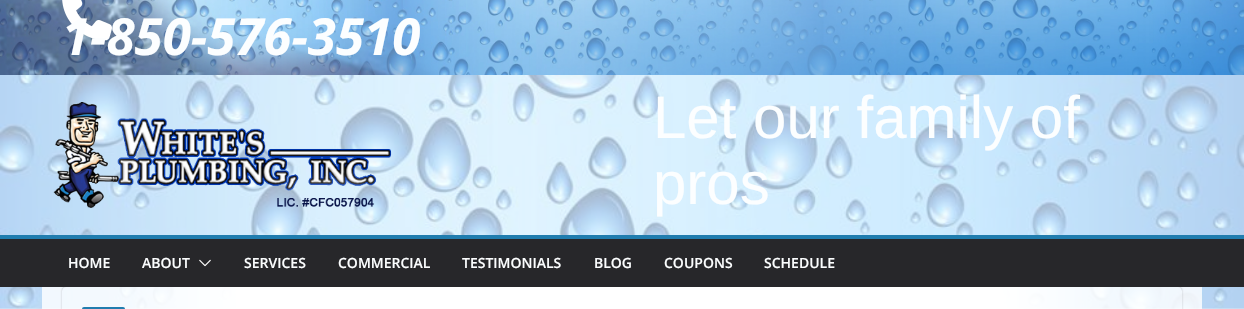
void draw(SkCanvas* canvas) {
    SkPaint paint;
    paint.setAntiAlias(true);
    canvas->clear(0xFFE4E4E7);
    canvas->drawImageRect(SkImages::DeferredFromEncodedData(SkData::MakeFromFileName("img1.png")), SkRect::MakeXYWH(0, 75, 1244, 234), SkSamplingOptions());
    canvas->drawImageRect(SkImages::DeferredFromEncodedData(SkData::MakeFromFileName("img2.png")), SkRect::MakeXYWH(0, 0, 1244, 75), SkSamplingOptions());
    canvas->drawImageRect(SkImages::DeferredFromEncodedData(SkData::MakeFromFileName("img3.png")), SkRect::MakeXYWH(62, 0, 50, 41), SkSamplingOptions());
    SkFont font1(fontMgr->matchFamilyStyle("Open Sans", SkFontStyle::BoldItalic()), 51);
    font1.setSubpixel(true);
    paint.setColor(0xFFFCFEFF);
    canvas->drawString("1-850-576-3510", 62, 55, font1, paint);
    paint.setColor(0x99FFFFFF);
    canvas->drawRect(SkRect::MakeXYWH(0, 75, 1244, 160), paint);
    canvas->drawImageRect(SkImages::DeferredFromEncodedData(SkData::MakeFromFileName("img4.png")), SkRect::MakeXYWH(53, 102, 339, 106), SkSamplingOptions());
    SkFont font2(fontMgr->matchFamilyStyle("Liberation Sans", SkFontStyle::Normal()), 60);
    font2.setSubpixel(true);
    paint.setColor(0xFFFCFEFF);
    canvas->drawString("Let our family of", 653, 138, font2, paint);
    canvas->drawString("pros", 653, 204, font2, paint);
    {
        const SkColor colors[] = {0x99FFFFFF, 0xFFFFFFFF, 0xFFFFFFFF, 0x99FFFFFF};
        const float stops[] = {0.1f, 0.2f, 0.8f, 0.9f};
        const SkPoint ends[] = {{0, 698}, {1244, 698}};
        paint.setShader(SkGradientShader::MakeLinear(ends, colors, stops, 4, SkTileMode::kClamp));
        paint.setAlpha(255);
    }
    canvas->drawRect(SkRect::MakeXYWH(0, 287, 1244, 22), paint);
    paint.setShader(nullptr);
    paint.setColor(0xCCFFFFFF);
    canvas->drawRect(SkRect::MakeXYWH(42, 287, 1160, 22), paint);
    canvas->save();
    canvas->clipPath(SkPathBuilder(SkPathFillType::kEvenOdd).moveTo(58, 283).lineTo(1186, 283).lineTo(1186, 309).lineTo(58, 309).close().moveTo(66, 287).lineTo(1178, 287).cubicTo(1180, 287, 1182, 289, 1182, 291).lineTo(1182, 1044).cubicTo(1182, 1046, 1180, 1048, 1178, 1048).lineTo(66, 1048).cubicTo(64, 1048, 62, 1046, 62, 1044).lineTo(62, 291).cubicTo(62, 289, 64, 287, 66, 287).close().detach(), true);
    paint.setColor(0x3D000000);
    paint.setMaskFilter(SkMaskFilter::MakeBlur(kNormal_SkBlurStyle, 1));
    canvas->drawRoundRect(SkRect::MakeXYWH(62, 287, 1120, 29), 4, 4, paint);
    paint.setMaskFilter(nullptr);
    canvas->restore();
    paint.setColor(0xFF27272A);
    canvas->drawRect(SkRect::MakeXYWH(0, 239, 1244, 48), paint);
    paint.setColor(0xFF207DAF);
    canvas->drawRect(SkRect::MakeXYWH(0, 235, 1244, 4), paint);
    SkFont font3(fontMgr->matchFamilyStyle("Open Sans", SkFontStyle(600, SkFontStyle::kNormal_Width, SkFontStyle::kUpright_Slant)), 14);
    font3.setSubpixel(true);
    paint.setColor(0xFFFCFEFF);
    canvas->drawString("HOME", 68, 268, font3, paint);
    canvas->drawString("ABOUT", 142, 268, font3, paint);
    canvas->drawImageRect(SkImages::DeferredFromEncodedData(SkData::MakeFromFileName("img5.png")), SkRect::MakeXYWH(199, 259, 12, 8), SkSamplingOptions());
    canvas->drawString("SERVICES", 244, 268, font3, paint);
    canvas->drawString("COMMERCIAL", 338, 268, font3, paint);
    canvas->drawString("TESTIMONIALS", 462, 268, font3, paint);
    canvas->drawString("BLOG", 594, 268, font3, paint);
    canvas->drawString("COUPONS", 664, 268, font3, paint);
    canvas->drawString("SCHEDULE", 764, 268, font3, paint);
    paint.setColor(0xFF207DAF);
    canvas->drawRoundRect(SkRect::MakeXYWH(82, 307, 43, 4), 2, 2, paint);
}
